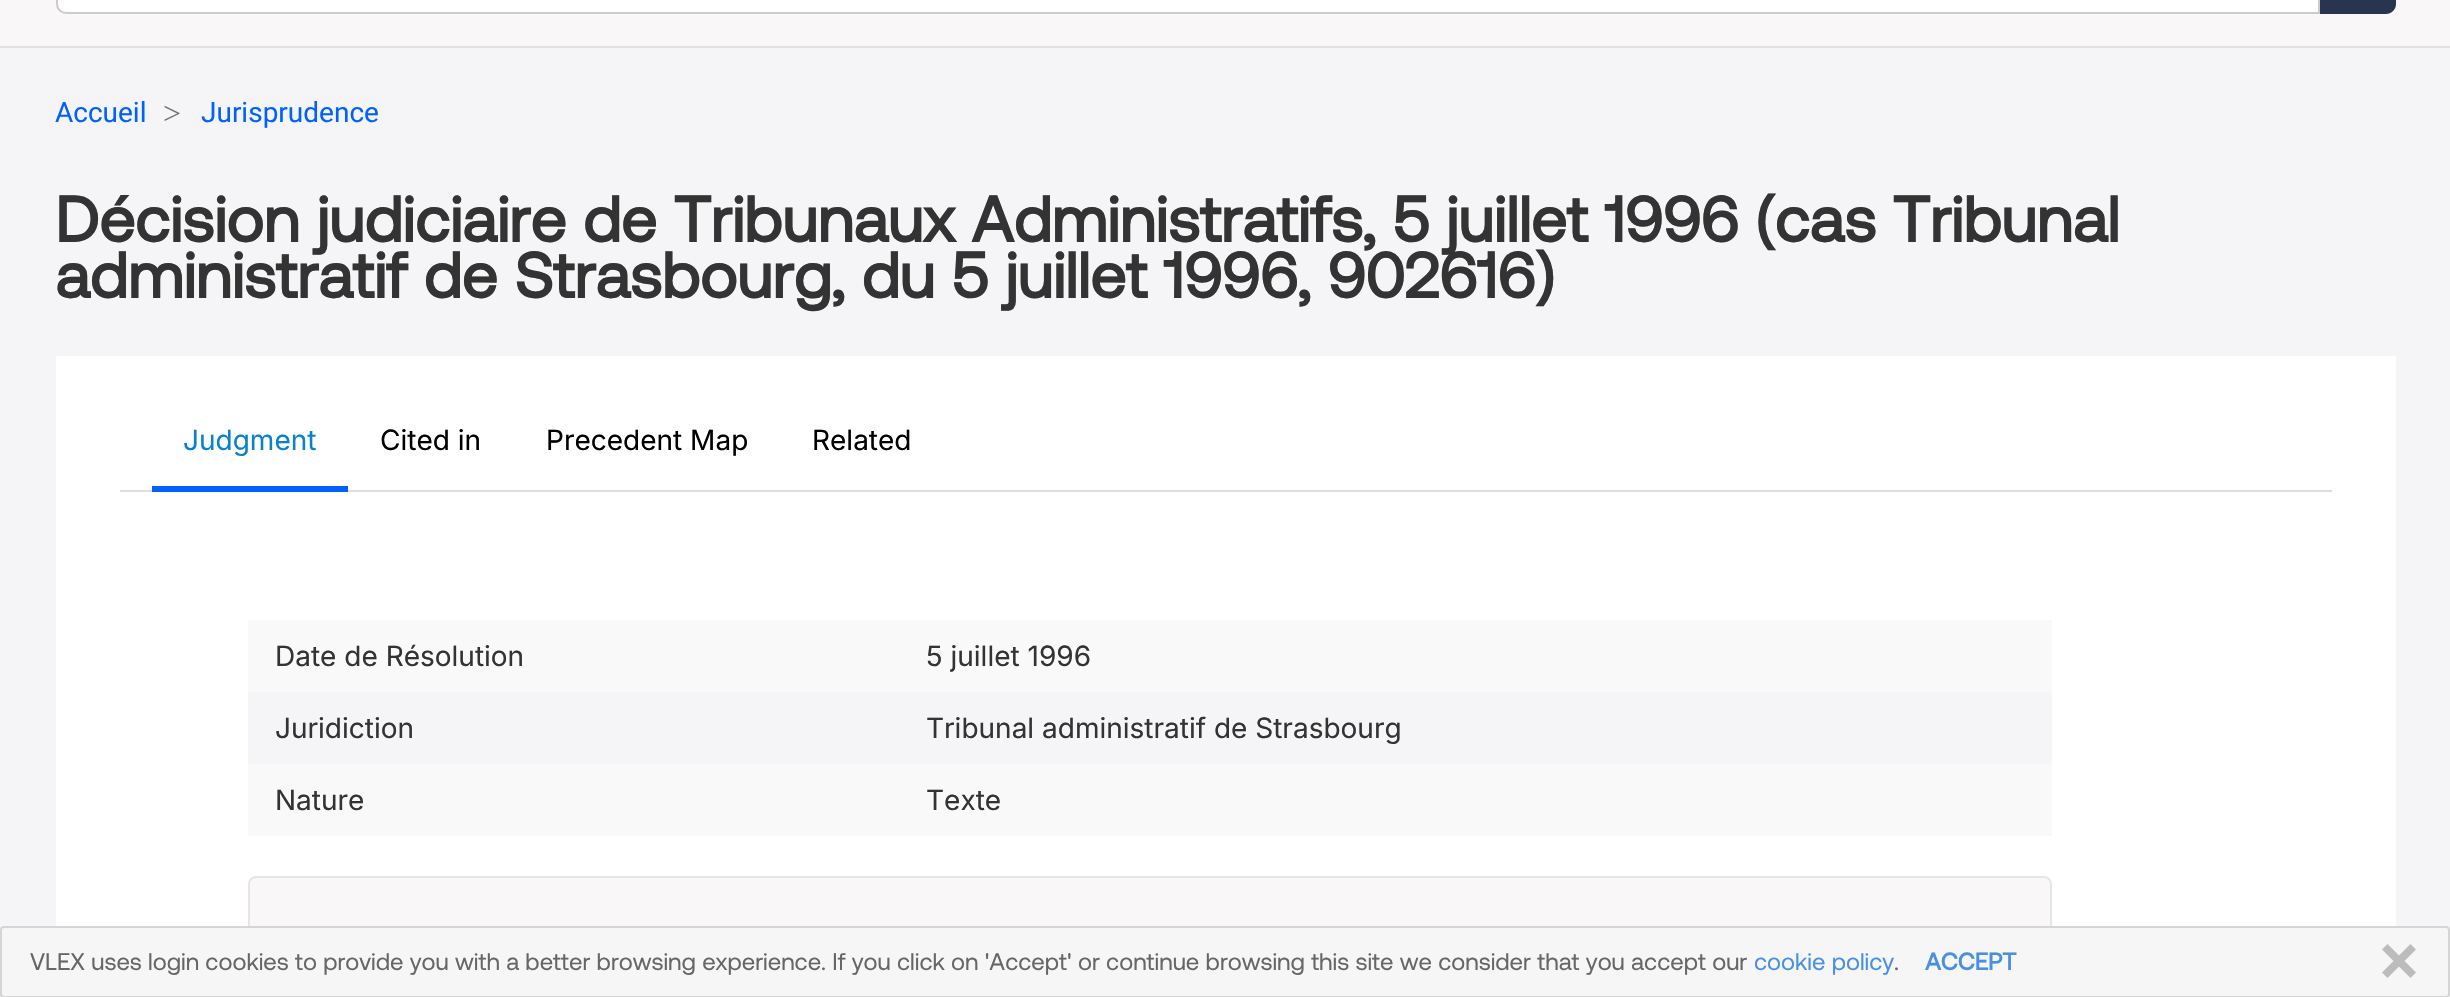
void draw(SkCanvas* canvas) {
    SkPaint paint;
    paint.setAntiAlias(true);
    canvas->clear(0xFFF5F5F7);
    paint.setColor(0xFFF9F7F7);
    canvas->drawRect(SkRect::MakeXYWH(0, 0, 2450, 46), paint);
    paint.setColor(0xFFE1E1E1);
    canvas->drawRect(SkRect::MakeXYWH(0, 46, 2450, 2), paint);
    paint.setColor(0xFFFFFFFF);
    canvas->drawPath(SkPathBuilder().moveTo(66, -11).lineTo(2319, -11).lineTo(2319, 13).lineTo(66, 13).cubicTo(61, 13, 57, 9, 57, 4).lineTo(57, -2).cubicTo(57, -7, 61, -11, 66, -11).close().detach(), paint);
    paint.setStyle(SkPaint::kStroke_Style);
    paint.setStrokeWidth(2);
    paint.setColor(0xFFCCCCCC);
    canvas->drawPath(SkPathBuilder().moveTo(66, -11).lineTo(2319, -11).lineTo(2319, 13).lineTo(66, 13).cubicTo(61, 13, 57, 9, 57, 4).lineTo(57, -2).cubicTo(57, -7, 61, -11, 66, -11).close().detach(), paint);
    paint.setStyle(SkPaint::kFill_Style);
    paint.setColor(0xFF29354E);
    canvas->drawPath(SkPathBuilder().moveTo(2320, -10).lineTo(2386, -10).cubicTo(2391.5f, -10, 2396, -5.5f, 2396, 0).lineTo(2396, 4).cubicTo(2396, 9.5f, 2391.5f, 14, 2386, 14).lineTo(2320, 14).close().detach(), paint);
    SkFont font1(fontMgr->matchFamilyStyle("Roboto", SkFontStyle::Normal()), 28);
    font1.setSubpixel(true);
    paint.setColor(0xFF0161FF);
    canvas->drawString("Accueil", 55, 122, font1, paint);
    SkFont font2(fontMgr->matchFamilyStyle("Liberation Serif", SkFontStyle::Normal()), 32);
    font2.setSubpixel(true);
    paint.setColor(0xFF71717A);
    canvas->drawString(">", 163, 124, font2, paint);
    paint.setColor(0xFF0161FF);
    canvas->drawString("Jurisprudence", 201, 122, font1, paint);
    SkFont font3(fontMgr->matchFamilyStyle("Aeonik", SkFontStyle::Bold()), 64);
    font3.setSubpixel(true);
    paint.setColor(0xFF333333);
    canvas->drawString("Décision judiciaire de Tribunaux Administratifs, 5 juillet 1996 (cas Tribunal", 55, 242, font3, paint);
    canvas->drawString("administratif de Strasbourg, du 5 juillet 1996, 902616)", 55, 298, font3, paint);
    paint.setColor(0xFFFFFFFF);
    canvas->drawRect(SkRect::MakeXYWH(56, 356, 2340, 570), paint);
    paint.setColor(0xFFDDDDDD);
    canvas->drawRect(SkRect::MakeXYWH(120, 490, 2212, 2), paint);
    SkFont font4(fontMgr->matchFamilyStyle("Inter", SkFontStyle::Normal()), 28);
    font4.setSubpixel(true);
    paint.setColor(0xFF0882CF);
    canvas->drawString("Judgment", 183, 450, font4, paint);
    paint.setColor(0xFF0161FF);
    canvas->drawRect(SkRect::MakeXYWH(152, 486, 196, 6), paint);
    paint.setColor(0xFF000000);
    canvas->drawString("Cited in", 380, 450, font4, paint);
    canvas->drawString("Precedent Map", 546, 450, font4, paint);
    canvas->drawString("Related", 812, 450, font4, paint);
    paint.setColor(0xFFF9F9F9);
    canvas->drawRect(SkRect::MakeXYWH(248, 620, 1804, 72), paint);
    paint.setColor(0xFF333333);
    canvas->drawString("Date de Résolution", 275, 666, font4, paint);
    canvas->drawString("5 juillet 1996", 926, 666, font4, paint);
    paint.setColor(0xFFF5F5F7);
    canvas->drawRect(SkRect::MakeXYWH(248, 692, 1804, 72), paint);
    paint.setColor(0xFF333333);
    canvas->drawString("Juridiction", 275, 738, font4, paint);
    canvas->drawString("Tribunal administratif de Strasbourg", 926, 738, font4, paint);
    paint.setColor(0xFFF9F9F9);
    canvas->drawRect(SkRect::MakeXYWH(248, 764, 1804, 72), paint);
    paint.setColor(0xFF333333);
    canvas->drawString("Nature", 275, 810, font4, paint);
    canvas->drawString("Texte", 926, 810, font4, paint);
    paint.setColor(0xFFF9F7F7);
    canvas->drawPath(SkPathBuilder().moveTo(256, 876).lineTo(2044, 876).cubicTo(2048.5f, 876, 2052, 879.5f, 2052, 884).lineTo(2052, 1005).lineTo(248, 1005).lineTo(248, 884).cubicTo(248, 879.5f, 251.5f, 876, 256, 876).close().detach(), paint);
    paint.setColor(0xFFE7E4E4);
    canvas->drawPath(SkPathBuilder(SkPathFillType::kEvenOdd).moveTo(256, 876).lineTo(2044, 876).cubicTo(2048, 876, 2052, 880, 2052, 884).lineTo(2052, 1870).lineTo(248, 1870).lineTo(248, 884).cubicTo(248, 880, 252, 876, 256, 876).close().moveTo(256, 878).lineTo(2044, 878).cubicTo(2047, 878, 2050, 881, 2050, 884).lineTo(2050, 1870).lineTo(250, 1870).lineTo(250, 884).cubicTo(250, 881, 253, 878, 256, 878).close().detach(), paint);
    paint.setColor(0xFFF6F6F6);
    canvas->drawRoundRect(SkRect::MakeXYWH(1, 927, 2448, 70), 3, 3, paint);
    paint.setStyle(SkPaint::kStroke_Style);
    paint.setColor(0xFFD5D5D5);
    canvas->drawRoundRect(SkRect::MakeXYWH(1, 927, 2448, 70), 3, 3, paint);
    SkFont font5(fontMgr->matchFamilyStyle("Aeonik", SkFontStyle::Normal()), 24);
    font5.setSubpixel(true);
    paint.setStyle(SkPaint::kFill_Style);
    paint.setColor(0xFF666666);
    canvas->drawString("VLEX uses login cookies to provide you with a better browsing experience. If you click on 'Accept' or continue browsing this site we consider that you accept our", 30, 970, font5, paint);
    paint.setColor(0xFF4A90E2);
    canvas->drawString("cookie policy", 1754, 970, font5, paint);
    paint.setColor(0xFF666666);
    canvas->drawString(".", 1894, 970, font5, paint);
    SkFont font6(fontMgr->matchFamilyStyle("Aeonik", SkFontStyle::Bold()), 24);
    font6.setSubpixel(true);
    paint.setColor(0xFF4A90E2);
    canvas->drawString("ACCEPT", 1925, 970, font6, paint);
    paint.setColor(0xFFBCBCBC);
    canvas->drawPath(SkPathBuilder().moveTo(2387.5f, 978).lineTo(2404.5f, 961).lineTo(2387.5f, 944).lineTo(2382, 949.5f).lineTo(2393.5f, 961).lineTo(2382, 972.5f).close().moveTo(2410.5f, 978).lineTo(2416, 972.5f).lineTo(2404.5f, 961).lineTo(2416, 949.5f).lineTo(2410.5f, 944).lineTo(2393.5f, 961).close().detach(), paint);
}
